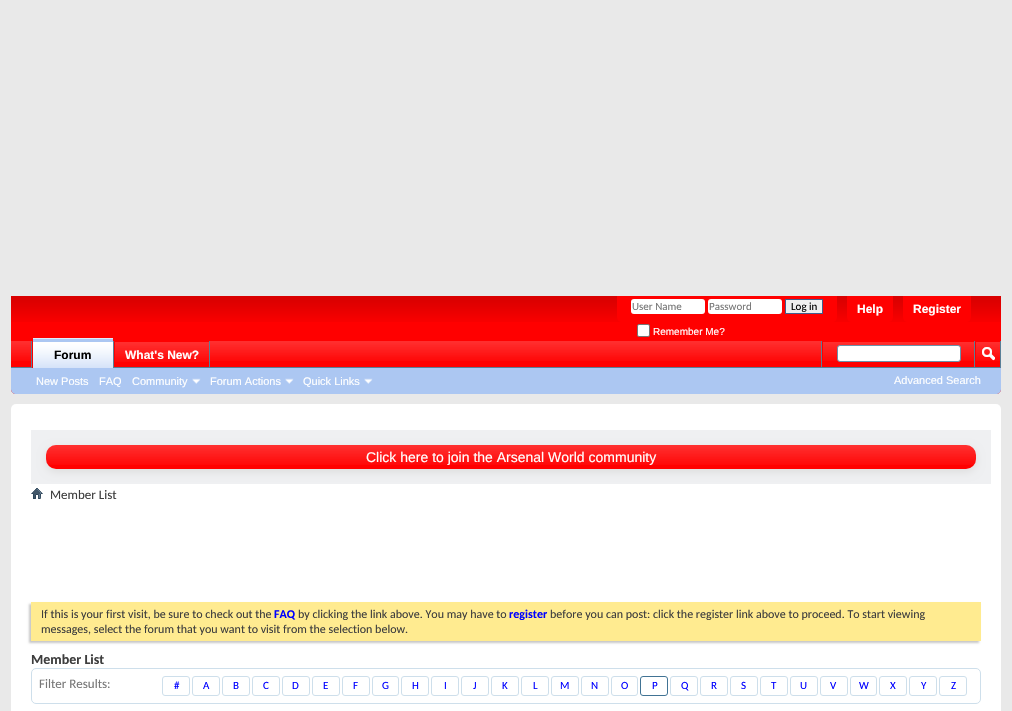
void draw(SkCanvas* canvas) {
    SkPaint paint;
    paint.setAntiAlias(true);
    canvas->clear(0xFFE9E9E9);
    paint.setColor(0xFFFF0000);
    canvas->drawPath(SkPathBuilder().moveTo(11, 296).lineTo(1001, 296).lineTo(1001, 389).cubicTo(1001, 392, 999, 394, 996, 394).lineTo(16, 394).cubicTo(13, 394, 11, 392, 11, 389).close().detach(), paint);
    canvas->drawImageRect(SkImages::DeferredFromEncodedData(SkData::MakeFromFileName("img1.png")), SkRect::MakeXYWH(11, 296, 990, 26), SkSamplingOptions());
    canvas->drawPath(SkPathBuilder().moveTo(617, 296).lineTo(837, 296).lineTo(837, 317).cubicTo(837, 320, 835, 322, 832, 322).lineTo(622, 322).cubicTo(619, 322, 617, 320, 617, 317).close().detach(), paint);
    paint.setColor(0xFFFFFFFF);
    canvas->drawRoundRect(SkRect::MakeXYWH(631, 299, 74, 15), 3, 3, paint);
    SkFont font1(fontMgr->matchFamilyStyle("Carlito", SkFontStyle::Normal()), 11);
    font1.setSubpixel(true);
    paint.setColor(0xFF777777);
    canvas->drawString("User Name", 632, 310, font1, paint);
    paint.setColor(0xFFFFFFFF);
    canvas->drawRoundRect(SkRect::MakeXYWH(708, 299, 74, 15), 3, 3, paint);
    paint.setColor(0xFF777777);
    canvas->drawString("Password", 709, 310, font1, paint);
    paint.setColor(0xFFEFEFEF);
    canvas->drawRect(SkRect::MakeXYWH(785.5f, 299.5f, 37, 14), paint);
    paint.setStyle(SkPaint::kStroke_Style);
    paint.setStrokeWidth(1);
    paint.setColor(0xFF415D8D);
    canvas->drawRect(SkRect::MakeXYWH(785.5f, 299.5f, 37, 14), paint);
    paint.setStyle(SkPaint::kFill_Style);
    paint.setColor(0xFF000000);
    canvas->drawString("Log in", 791, 310, font1, paint);
    paint.setColor(0xFFFFFFFF);
    canvas->drawRoundRect(SkRect::MakeXYWH(637.5f, 324.5f, 12, 12), 1.5f, 1.5f, paint);
    paint.setStyle(SkPaint::kStroke_Style);
    paint.setColor(0xFF767676);
    canvas->drawRoundRect(SkRect::MakeXYWH(637.5f, 324.5f, 12, 12), 1.5f, 1.5f, paint);
    SkFont font2(fontMgr->matchFamilyStyle("Liberation Sans", SkFontStyle::Normal()), 10);
    font2.setSubpixel(true);
    paint.setStyle(SkPaint::kFill_Style);
    paint.setColor(0xFFFFFFFF);
    canvas->drawString("Remember Me?", 653, 335, font2, paint);
    paint.setColor(0xFFFF0000);
    canvas->drawPath(SkPathBuilder().moveTo(847, 296).lineTo(893, 296).lineTo(893, 317).cubicTo(893, 320, 891, 322, 888, 322).lineTo(852, 322).cubicTo(849, 322, 847, 320, 847, 317).close().detach(), paint);
    SkFont font3(fontMgr->matchFamilyStyle("Liberation Sans", SkFontStyle::Bold()), 12);
    font3.setSubpixel(true);
    paint.setColor(0xFFFFFFFF);
    canvas->drawString("Help", 857, 313, font3, paint);
    paint.setColor(0xFFFF0000);
    canvas->drawPath(SkPathBuilder().moveTo(903, 296).lineTo(971, 296).lineTo(971, 317).cubicTo(971, 320, 969, 322, 966, 322).lineTo(908, 322).cubicTo(905, 322, 903, 320, 903, 317).close().detach(), paint);
    paint.setColor(0xFFFFFFFF);
    canvas->drawString("Register", 913, 313, font3, paint);
    paint.setColor(0xFFACC7F2);
    canvas->drawPath(SkPathBuilder().moveTo(11, 341).lineTo(1001, 341).lineTo(1001, 389).cubicTo(1001, 392, 999, 394, 996, 394).lineTo(16, 394).cubicTo(13, 394, 11, 392, 11, 389).close().detach(), paint);
    paint.setColor(0xFFFF0000);
    canvas->drawRect(SkRect::MakeXYWH(11, 341, 989, 26), paint);
    canvas->drawImageRect(SkImages::DeferredFromEncodedData(SkData::MakeFromFileName("img2.png")), SkRect::MakeXYWH(11, 341, 989, 20), SkSamplingOptions());
    paint.setColor(0xFF5A7F97);
    canvas->drawRect(SkRect::MakeXYWH(113, 341, 1, 26), paint);
    canvas->drawRect(SkRect::MakeXYWH(31, 341, 1, 26), paint);
    canvas->drawRect(SkRect::MakeXYWH(209, 341, 1, 27), paint);
    paint.setColor(0xFFFF0000);
    canvas->drawRect(SkRect::MakeXYWH(114, 341, 1, 27), paint);
    paint.setColor(0xFF5A7F97);
    canvas->drawRect(SkRect::MakeXYWH(11, 367, 990, 1), paint);
    paint.setColor(0xFFACC7F2);
    canvas->drawRect(SkRect::MakeXYWH(33, 338, 80, 30), paint);
    canvas->drawImageRect(SkImages::DeferredFromEncodedData(SkData::MakeFromFileName("img3.png")), SkRect::MakeXYWH(33, 338, 80, 30), SkSamplingOptions());
    paint.setColor(0xFFFF0000);
    canvas->drawRect(SkRect::MakeXYWH(32, 337, 1, 31), paint);
    paint.setColor(0xFF000000);
    canvas->drawString("Forum", 54, 359, font3, paint);
    paint.setColor(0xFFFF0000);
    canvas->drawRect(SkRect::MakeXYWH(115, 341, 94, 20), paint);
    canvas->drawImageRect(SkImages::DeferredFromEncodedData(SkData::MakeFromFileName("img4.png")), SkRect::MakeXYWH(115, 342, 94, 20), SkSamplingOptions());
    paint.setColor(0xFFFFFFFF);
    canvas->drawString("What's New?", 125, 359, font3, paint);
    SkFont font4(fontMgr->matchFamilyStyle("Liberation Sans", SkFontStyle::Normal()), 11);
    font4.setSubpixel(true);
    canvas->drawString("New Posts", 36, 385, font4, paint);
    canvas->drawString("FAQ", 99, 385, font4, paint);
    canvas->drawString("Community", 132, 385, font4, paint);
    canvas->drawImageRect(SkImages::DeferredFromEncodedData(SkData::MakeFromFileName("img5.png")), SkRect::MakeXYWH(192, 378, 9, 6), SkSamplingOptions());
    canvas->drawString("Forum Actions", 210, 385, font4, paint);
    canvas->drawImageRect(SkImages::DeferredFromEncodedData(SkData::MakeFromFileName("img5.png")), SkRect::MakeXYWH(285, 378, 9, 6), SkSamplingOptions());
    canvas->drawString("Quick Links", 303, 385, font4, paint);
    canvas->drawImageRect(SkImages::DeferredFromEncodedData(SkData::MakeFromFileName("img5.png")), SkRect::MakeXYWH(364, 378, 9, 6), SkSamplingOptions());
    paint.setColor(0xFF5A7F97);
    canvas->drawRect(SkRect::MakeXYWH(821, 341, 1, 26), paint);
    paint.setColor(0xFFFF0000);
    canvas->drawRect(SkRect::MakeXYWH(822, 341, 152, 1), paint);
    canvas->drawRect(SkRect::MakeXYWH(822, 341, 1, 26), paint);
    paint.setColor(0xFFFFFFFF);
    canvas->drawRoundRect(SkRect::MakeXYWH(837.5f, 345.5f, 123, 16), 2.5f, 2.5f, paint);
    paint.setStyle(SkPaint::kStroke_Style);
    paint.setColor(0xFF6B91AB);
    canvas->drawRoundRect(SkRect::MakeXYWH(837.5f, 345.5f, 123, 16), 2.5f, 2.5f, paint);
    paint.setStyle(SkPaint::kFill_Style);
    paint.setColor(0xFF5A7F97);
    canvas->drawRect(SkRect::MakeXYWH(1000, 341, 1, 26), paint);
    canvas->drawRect(SkRect::MakeXYWH(974, 341, 1, 26), paint);
    paint.setColor(0xFFFF0000);
    canvas->drawRect(SkRect::MakeXYWH(975, 341, 25, 1), paint);
    canvas->drawRect(SkRect::MakeXYWH(975, 341, 1, 26), paint);
    canvas->drawImageRect(SkImages::DeferredFromEncodedData(SkData::MakeFromFileName("img6.png")), SkRect::MakeXYWH(982, 347, 13, 14), SkSamplingOptions());
    paint.setColor(0xFFFFFFFF);
    canvas->drawString("Advanced Search", 894, 384, font4, paint);
    canvas->drawRoundRect(SkRect::MakeXYWH(11, 404, 990, 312), 5, 5, paint);
    paint.setColor(0xFFEFF0F2);
    canvas->drawRect(SkRect::MakeXYWH(31, 430, 960, 54), paint);
    paint.setColor(0xFFDDDDDD);
    paint.setMaskFilter(SkMaskFilter::MakeBlur(kNormal_SkBlurStyle, 4));
    canvas->drawRoundRect(SkRect::MakeXYWH(46, 448, 930, 24), 10, 10, paint);
    paint.setMaskFilter(nullptr);
    paint.setColor(0xFFFF0000);
    canvas->drawRoundRect(SkRect::MakeXYWH(46, 445, 930, 24), 10, 10, paint);
    canvas->drawImageRect(SkImages::DeferredFromEncodedData(SkData::MakeFromFileName("img7.png")), SkRect::MakeXYWH(46, 445, 930, 20), SkSamplingOptions());
    SkFont font5(fontMgr->matchFamilyStyle("Liberation Sans", SkFontStyle::Normal()), 14);
    font5.setSubpixel(true);
    paint.setColor(0xFFFFFFFF);
    canvas->drawString("Click here to join the Arsenal World community", 366, 462, font5, paint);
    canvas->drawImageRect(SkImages::DeferredFromEncodedData(SkData::MakeFromFileName("img8.png")), SkRect::MakeXYWH(31, 488, 12, 11), SkSamplingOptions());
    SkFont font6(fontMgr->matchFamilyStyle("Carlito", SkFontStyle::Normal()), 13);
    font6.setSubpixel(true);
    paint.setColor(0xFF3E3E3E);
    canvas->drawString("Member List", 50, 499, font6, paint);
    paint.setColor(0xFFC8C8C8);
    paint.setMaskFilter(SkMaskFilter::MakeBlur(kNormal_SkBlurStyle, 1));
    canvas->drawRect(SkRect::MakeXYWH(29, 604, 950, 39), paint);
    paint.setMaskFilter(nullptr);
    paint.setColor(0xFFFFEB90);
    canvas->drawRect(SkRect::MakeXYWH(31, 602, 950, 39), paint);
    SkFont font7(fontMgr->matchFamilyStyle("Carlito", SkFontStyle::Normal()), 12);
    font7.setSubpixel(true);
    paint.setColor(0xFF3E3E3E);
    canvas->drawString("If this is your first visit, be sure to check out the", 41, 618, font7, paint);
    SkFont font8(fontMgr->matchFamilyStyle("Carlito", SkFontStyle::Bold()), 12);
    font8.setSubpixel(true);
    paint.setColor(0xFF0000FF);
    canvas->drawString("FAQ", 274, 618, font8, paint);
    paint.setColor(0xFF3E3E3E);
    canvas->drawString("by clicking the link above. You may have to", 298, 618, font7, paint);
    paint.setColor(0xFF0000FF);
    canvas->drawString("register", 509, 618, font8, paint);
    paint.setColor(0xFF3E3E3E);
    canvas->drawString("before you can post: click the register link above to proceed. To start viewing", 550, 618, font7, paint);
    canvas->drawString("messages, select the forum that you want to visit from the selection below.", 41, 633, font7, paint);
    SkFont font9(fontMgr->matchFamilyStyle("Carlito", SkFontStyle::Bold()), 14);
    font9.setSubpixel(true);
    canvas->drawString("Member List", 31, 664, font9, paint);
    paint.setStyle(SkPaint::kStroke_Style);
    paint.setColor(0xFFCEDFEB);
    canvas->drawRoundRect(SkRect::MakeXYWH(31.5f, 668.5f, 949, 35), 4.5f, 4.5f, paint);
    paint.setStyle(SkPaint::kFill_Style);
    paint.setColor(0xFF777777);
    canvas->drawString("Filter Results:", 39, 688, font6, paint);
    paint.setStyle(SkPaint::kStroke_Style);
    paint.setColor(0xFFCEDFEB);
    canvas->drawRoundRect(SkRect::MakeXYWH(162.5f, 676.5f, 27, 19), 2.5f, 2.5f, paint);
    paint.setStyle(SkPaint::kFill_Style);
    paint.setColor(0xFF0000FF);
    canvas->drawString("#", 174, 689, font1, paint);
    paint.setStyle(SkPaint::kStroke_Style);
    paint.setColor(0xFFCEDFEB);
    canvas->drawRoundRect(SkRect::MakeXYWH(192.5f, 676.5f, 27, 19), 2.5f, 2.5f, paint);
    paint.setStyle(SkPaint::kFill_Style);
    paint.setColor(0xFF0000FF);
    canvas->drawString("A", 203, 689, font1, paint);
    paint.setStyle(SkPaint::kStroke_Style);
    paint.setColor(0xFFCEDFEB);
    canvas->drawRoundRect(SkRect::MakeXYWH(222.5f, 676.5f, 27, 19), 2.5f, 2.5f, paint);
    paint.setStyle(SkPaint::kFill_Style);
    paint.setColor(0xFF0000FF);
    canvas->drawString("B", 233, 689, font1, paint);
    paint.setStyle(SkPaint::kStroke_Style);
    paint.setColor(0xFFCEDFEB);
    canvas->drawRoundRect(SkRect::MakeXYWH(252.5f, 676.5f, 27, 19), 2.5f, 2.5f, paint);
    paint.setStyle(SkPaint::kFill_Style);
    paint.setColor(0xFF0000FF);
    canvas->drawString("C", 263, 689, font1, paint);
    paint.setStyle(SkPaint::kStroke_Style);
    paint.setColor(0xFFCEDFEB);
    canvas->drawRoundRect(SkRect::MakeXYWH(282.5f, 676.5f, 27, 19), 2.5f, 2.5f, paint);
    paint.setStyle(SkPaint::kFill_Style);
    paint.setColor(0xFF0000FF);
    canvas->drawString("D", 292, 689, font1, paint);
    paint.setStyle(SkPaint::kStroke_Style);
    paint.setColor(0xFFCEDFEB);
    canvas->drawRoundRect(SkRect::MakeXYWH(312.5f, 676.5f, 27, 19), 2.5f, 2.5f, paint);
    paint.setStyle(SkPaint::kFill_Style);
    paint.setColor(0xFF0000FF);
    canvas->drawString("E", 323, 689, font1, paint);
    paint.setStyle(SkPaint::kStroke_Style);
    paint.setColor(0xFFCEDFEB);
    canvas->drawRoundRect(SkRect::MakeXYWH(342.5f, 676.5f, 27, 19), 2.5f, 2.5f, paint);
    paint.setStyle(SkPaint::kFill_Style);
    paint.setColor(0xFF0000FF);
    canvas->drawString("F", 353, 689, font1, paint);
    paint.setStyle(SkPaint::kStroke_Style);
    paint.setColor(0xFFCEDFEB);
    canvas->drawRoundRect(SkRect::MakeXYWH(372.5f, 676.5f, 26, 19), 2.5f, 2.5f, paint);
    paint.setStyle(SkPaint::kFill_Style);
    paint.setColor(0xFF0000FF);
    canvas->drawString("G", 382, 689, font1, paint);
    paint.setStyle(SkPaint::kStroke_Style);
    paint.setColor(0xFFCEDFEB);
    canvas->drawRoundRect(SkRect::MakeXYWH(401.5f, 676.5f, 27, 19), 2.5f, 2.5f, paint);
    paint.setStyle(SkPaint::kFill_Style);
    paint.setColor(0xFF0000FF);
    canvas->drawString("H", 412, 689, font1, paint);
    paint.setStyle(SkPaint::kStroke_Style);
    paint.setColor(0xFFCEDFEB);
    canvas->drawRoundRect(SkRect::MakeXYWH(431.5f, 676.5f, 27, 19), 2.5f, 2.5f, paint);
    paint.setStyle(SkPaint::kFill_Style);
    paint.setColor(0xFF0000FF);
    canvas->drawString("I", 444, 689, font1, paint);
    paint.setStyle(SkPaint::kStroke_Style);
    paint.setColor(0xFFCEDFEB);
    canvas->drawRoundRect(SkRect::MakeXYWH(461.5f, 676.5f, 27, 19), 2.5f, 2.5f, paint);
    paint.setStyle(SkPaint::kFill_Style);
    paint.setColor(0xFF0000FF);
    canvas->drawString("J", 473, 689, font1, paint);
    paint.setStyle(SkPaint::kStroke_Style);
    paint.setColor(0xFFCEDFEB);
    canvas->drawRoundRect(SkRect::MakeXYWH(491.5f, 676.5f, 27, 19), 2.5f, 2.5f, paint);
    paint.setStyle(SkPaint::kFill_Style);
    paint.setColor(0xFF0000FF);
    canvas->drawString("K", 502, 689, font1, paint);
    paint.setStyle(SkPaint::kStroke_Style);
    paint.setColor(0xFFCEDFEB);
    canvas->drawRoundRect(SkRect::MakeXYWH(521.5f, 676.5f, 27, 19), 2.5f, 2.5f, paint);
    paint.setStyle(SkPaint::kFill_Style);
    paint.setColor(0xFF0000FF);
    canvas->drawString("L", 533, 689, font1, paint);
    paint.setStyle(SkPaint::kStroke_Style);
    paint.setColor(0xFFCEDFEB);
    canvas->drawRoundRect(SkRect::MakeXYWH(551.5f, 676.5f, 27, 19), 2.5f, 2.5f, paint);
    paint.setStyle(SkPaint::kFill_Style);
    paint.setColor(0xFF0000FF);
    canvas->drawString("M", 560, 689, font1, paint);
    paint.setStyle(SkPaint::kStroke_Style);
    paint.setColor(0xFFCEDFEB);
    canvas->drawRoundRect(SkRect::MakeXYWH(581.5f, 676.5f, 27, 19), 2.5f, 2.5f, paint);
    paint.setStyle(SkPaint::kFill_Style);
    paint.setColor(0xFF0000FF);
    canvas->drawString("N", 591, 689, font1, paint);
    paint.setStyle(SkPaint::kStroke_Style);
    paint.setColor(0xFFCEDFEB);
    canvas->drawRoundRect(SkRect::MakeXYWH(611.5f, 676.5f, 26, 19), 2.5f, 2.5f, paint);
    paint.setStyle(SkPaint::kFill_Style);
    paint.setColor(0xFF0000FF);
    canvas->drawString("O", 621, 689, font1, paint);
    paint.setStyle(SkPaint::kStroke_Style);
    paint.setColor(0xFF417394);
    canvas->drawRoundRect(SkRect::MakeXYWH(640.5f, 676.5f, 27, 19), 2.5f, 2.5f, paint);
    paint.setStyle(SkPaint::kFill_Style);
    paint.setColor(0xFF0000FF);
    canvas->drawString("P", 652, 689, font1, paint);
    paint.setStyle(SkPaint::kStroke_Style);
    paint.setColor(0xFFCEDFEB);
    canvas->drawRoundRect(SkRect::MakeXYWH(670.5f, 676.5f, 27, 19), 2.5f, 2.5f, paint);
    paint.setStyle(SkPaint::kFill_Style);
    paint.setColor(0xFF0000FF);
    canvas->drawString("Q", 681, 689, font1, paint);
    paint.setStyle(SkPaint::kStroke_Style);
    paint.setColor(0xFFCEDFEB);
    canvas->drawRoundRect(SkRect::MakeXYWH(700.5f, 676.5f, 27, 19), 2.5f, 2.5f, paint);
    paint.setStyle(SkPaint::kFill_Style);
    paint.setColor(0xFF0000FF);
    canvas->drawString("R", 711, 689, font1, paint);
    paint.setStyle(SkPaint::kStroke_Style);
    paint.setColor(0xFFCEDFEB);
    canvas->drawRoundRect(SkRect::MakeXYWH(730.5f, 676.5f, 27, 19), 2.5f, 2.5f, paint);
    paint.setStyle(SkPaint::kFill_Style);
    paint.setColor(0xFF0000FF);
    canvas->drawString("S", 741, 689, font1, paint);
    paint.setStyle(SkPaint::kStroke_Style);
    paint.setColor(0xFFCEDFEB);
    canvas->drawRoundRect(SkRect::MakeXYWH(760.5f, 676.5f, 27, 19), 2.5f, 2.5f, paint);
    paint.setStyle(SkPaint::kFill_Style);
    paint.setColor(0xFF0000FF);
    canvas->drawString("T", 771, 689, font1, paint);
    paint.setStyle(SkPaint::kStroke_Style);
    paint.setColor(0xFFCEDFEB);
    canvas->drawRoundRect(SkRect::MakeXYWH(790.5f, 676.5f, 27, 19), 2.5f, 2.5f, paint);
    paint.setStyle(SkPaint::kFill_Style);
    paint.setColor(0xFF0000FF);
    canvas->drawString("U", 800, 689, font1, paint);
    paint.setStyle(SkPaint::kStroke_Style);
    paint.setColor(0xFFCEDFEB);
    canvas->drawRoundRect(SkRect::MakeXYWH(820.5f, 676.5f, 27, 19), 2.5f, 2.5f, paint);
    paint.setStyle(SkPaint::kFill_Style);
    paint.setColor(0xFF0000FF);
    canvas->drawString("V", 830, 689, font1, paint);
    paint.setStyle(SkPaint::kStroke_Style);
    paint.setColor(0xFFCEDFEB);
    canvas->drawRoundRect(SkRect::MakeXYWH(850.5f, 676.5f, 26, 19), 2.5f, 2.5f, paint);
    paint.setStyle(SkPaint::kFill_Style);
    paint.setColor(0xFF0000FF);
    canvas->drawString("W", 859, 689, font1, paint);
    paint.setStyle(SkPaint::kStroke_Style);
    paint.setColor(0xFFCEDFEB);
    canvas->drawRoundRect(SkRect::MakeXYWH(879.5f, 676.5f, 27, 19), 2.5f, 2.5f, paint);
    paint.setStyle(SkPaint::kFill_Style);
    paint.setColor(0xFF0000FF);
    canvas->drawString("X", 890, 689, font1, paint);
    paint.setStyle(SkPaint::kStroke_Style);
    paint.setColor(0xFFCEDFEB);
    canvas->drawRoundRect(SkRect::MakeXYWH(909.5f, 676.5f, 27, 19), 2.5f, 2.5f, paint);
    paint.setStyle(SkPaint::kFill_Style);
    paint.setColor(0xFF0000FF);
    canvas->drawString("Y", 921, 689, font1, paint);
    paint.setStyle(SkPaint::kStroke_Style);
    paint.setColor(0xFFCEDFEB);
    canvas->drawRoundRect(SkRect::MakeXYWH(939.5f, 676.5f, 27, 19), 2.5f, 2.5f, paint);
    paint.setStyle(SkPaint::kFill_Style);
    paint.setColor(0xFF0000FF);
    canvas->drawString("Z", 951, 689, font1, paint);
}
